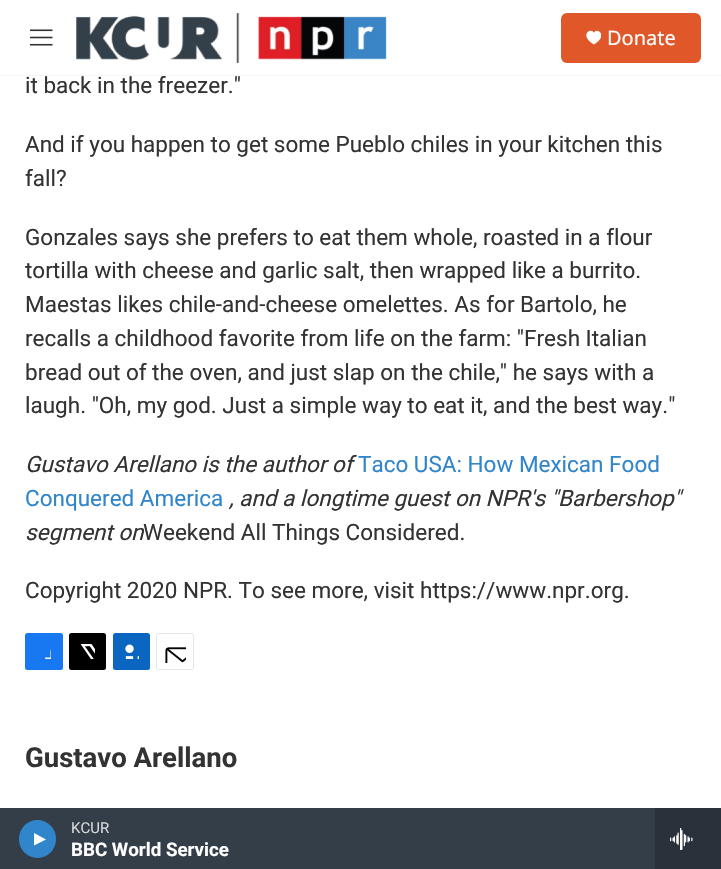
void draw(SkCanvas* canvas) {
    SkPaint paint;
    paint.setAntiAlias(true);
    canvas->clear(0xFFFFFFFF);
    SkFont font1(fontMgr->matchFamilyStyle("Roboto", SkFontStyle::Normal()), 22.5f);
    font1.setSubpixel(true);
    paint.setColor(0xFF333333);
    canvas->drawString("it back in the freezer.\"", 25, 93, font1, paint);
    paint.setColor(0xFFF5F5F5);
    canvas->drawRect(SkRect::MakeXYWH(0, 75, 721, 1), paint);
    canvas->drawImageRect(SkImages::DeferredFromEncodedData(SkData::MakeFromFileName("img1.png")), SkRect::MakeXYWH(30, 29, 23, 17), SkSamplingOptions());
    canvas->drawImageRect(SkImages::DeferredFromEncodedData(SkData::MakeFromFileName("img2.png")), SkRect::MakeXYWH(76, 13, 311, 50), SkSamplingOptions());
    paint.setColor(0xFFE0582A);
    canvas->drawRoundRect(SkRect::MakeXYWH(561, 13, 140, 50), 6, 6, paint);
    canvas->save();
    canvas->clipRect(SkRect::MakeXYWH(586, 30, 15, 15));
    paint.setColor(0xFFFFFFFF);
    canvas->drawPath(SkPathBuilder().moveTo(594, 33).cubicTo(591.5f, 26.5f, 578, 35, 594, 44.5f).cubicTo(609.5f, 35, 596, 26.5f, 594, 33).close().detach(), paint);
    canvas->restore();
    SkFont font2(fontMgr->matchFamilyStyle("Noto Sans", SkFontStyle::Normal()), 20);
    font2.setSubpixel(true);
    canvas->drawString("Donate", 607, 45, font2, paint);
    paint.setColor(0xFF333E48);
    canvas->drawRect(SkRect::MakeXYWH(0, 808, 655, 61), paint);
    paint.setColor(0xFF3085CB);
    canvas->drawRoundRect(SkRect::MakeXYWH(19, 820, 37, 38), 18.5f, 18.5f, paint);
    paint.setColor(0xFFFFFFFF);
    canvas->drawPath(SkPathBuilder().moveTo(34, 833).lineTo(46, 839.5f).lineTo(34, 845.5f).close().detach(), paint);
    SkFont font3(fontMgr->matchFamilyStyle("Roboto", SkFontStyle::Normal()), 15);
    font3.setSubpixel(true);
    paint.setColor(0xFFD6D8DA);
    canvas->drawString("KCUR", 71, 833, font3, paint);
    SkFont font4(fontMgr->matchFamilyStyle("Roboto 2", SkFontStyle::Bold()), 18.75f);
    font4.setSubpixel(true);
    paint.setColor(0xFFFFFFFF);
    canvas->drawString("BBC World Service", 71, 856, font4, paint);
    paint.setColor(0xFF29323A);
    canvas->drawRect(SkRect::MakeXYWH(655, 808, 66, 61), paint);
    canvas->drawImageRect(SkImages::DeferredFromEncodedData(SkData::MakeFromFileName("img3.png")), SkRect::MakeXYWH(670, 828, 23, 22), SkSamplingOptions());
    paint.setColor(0xFF333333);
    canvas->drawString("And if you happen to get some Pueblo chiles in your kitchen this", 25, 152, font1, paint);
    canvas->drawString("fall?", 25, 186, font1, paint);
    canvas->drawString("Gonzales says she prefers to eat them whole, roasted in a flour", 25, 245, font1, paint);
    canvas->drawString("tortilla with cheese and garlic salt, then wrapped like a burrito.", 25, 278, font1, paint);
    canvas->drawString("Maestas likes chile-and-cheese omelettes. As for Bartolo, he", 25, 312, font1, paint);
    canvas->drawString("recalls a childhood favorite from life on the farm: \"Fresh Italian", 25, 346, font1, paint);
    canvas->drawString("bread out of the oven, and just slap on the chile,\" he says with a", 25, 380, font1, paint);
    canvas->drawString("laugh. \"Oh, my god. Just a simple way to eat it, and the best way.\"", 25, 413, font1, paint);
    SkFont font5(fontMgr->matchFamilyStyle("Roboto", SkFontStyle::Italic()), 22.5f);
    font5.setSubpixel(true);
    canvas->drawString("Gustavo Arellano is the author of", 25, 472, font5, paint);
    paint.setColor(0xFF3085CB);
    canvas->drawString("Taco USA: How Mexican Food", 358, 472, font1, paint);
    canvas->drawString("Conquered America", 25, 506, font1, paint);
    paint.setColor(0xFF333333);
    canvas->drawString(", and a longtime guest on NPR's \"Barbershop\"", 229, 506, font5, paint);
    canvas->drawString("segment on", 25, 540, font5, paint);
    canvas->drawString("Weekend All Things Considered.", 143, 540, font1, paint);
    canvas->drawString("Copyright 2020 NPR. To see more, visit https://www.npr.org.", 25, 598, font1, paint);
    paint.setColor(0xFF1778F2);
    canvas->drawRoundRect(SkRect::MakeXYWH(25, 633, 38, 37), 2.5f, 2.5f, paint);
    canvas->drawImageRect(SkImages::DeferredFromEncodedData(SkData::MakeFromFileName("img4.png")), SkRect::MakeXYWH(45, 649, 6, 10), SkSamplingOptions());
    paint.setColor(0xFF000000);
    canvas->drawRoundRect(SkRect::MakeXYWH(69, 633, 37, 37), 2.5f, 2.5f, paint);
    canvas->drawImageRect(SkImages::DeferredFromEncodedData(SkData::MakeFromFileName("img5.png")), SkRect::MakeXYWH(80, 644, 15, 15), SkSamplingOptions());
    paint.setColor(0xFF0A66C1);
    canvas->drawRoundRect(SkRect::MakeXYWH(113, 633, 37, 37), 2.5f, 2.5f, paint);
    canvas->drawImageRect(SkImages::DeferredFromEncodedData(SkData::MakeFromFileName("img6.png")), SkRect::MakeXYWH(125, 644, 14, 15), SkSamplingOptions());
    paint.setStyle(SkPaint::kStroke_Style);
    paint.setStrokeWidth(1);
    paint.setColor(0xFFE6E6E6);
    canvas->drawRoundRect(SkRect::MakeXYWH(156.5f, 633.5f, 37, 36), 2, 2, paint);
    canvas->drawImageRect(SkImages::DeferredFromEncodedData(SkData::MakeFromFileName("img7.png")), SkRect::MakeXYWH(165, 647, 21, 16), SkSamplingOptions());
    SkFont font6(fontMgr->matchFamilyStyle("Roboto", SkFontStyle::Bold()), 27.5f);
    font6.setSubpixel(true);
    paint.setStyle(SkPaint::kFill_Style);
    paint.setColor(0xFF333333);
    canvas->drawString("Gustavo Arellano", 25, 767, font6, paint);
}
